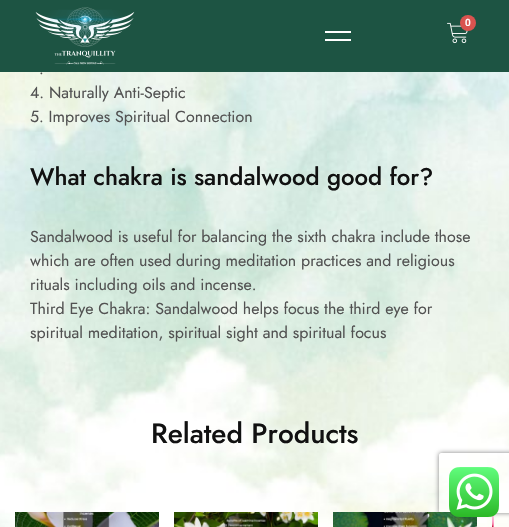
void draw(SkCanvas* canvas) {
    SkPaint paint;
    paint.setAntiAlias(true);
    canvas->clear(0xFFFFFFFF);
    canvas->drawImageRect(SkImages::DeferredFromEncodedData(SkData::MakeFromFileName("img1.png")), SkRect::MakeXYWH(0, 72, 509, 455), SkSamplingOptions());
    paint.setColor(0xFF1D5443);
    canvas->drawRect(SkRect::MakeXYWH(0, 0, 509, 72), paint);
    canvas->drawImageRect(SkImages::DeferredFromEncodedData(SkData::MakeFromFileName("img2.png")), SkRect::MakeXYWH(35, 7, 100, 58), SkSamplingOptions());
    canvas->drawImageRect(SkImages::DeferredFromEncodedData(SkData::MakeFromFileName("img3.png")), SkRect::MakeXYWH(447, 22, 21, 22), SkSamplingOptions());
    paint.setColor(0xFFD9534F);
    canvas->drawCircle(468, 23, 8, paint);
    SkFont font1(fontMgr->matchFamilyStyle("Roboto", SkFontStyle(600, SkFontStyle::kNormal_Width, SkFontStyle::kUpright_Slant)), 10);
    font1.setSubpixel(true);
    paint.setColor(0xFFFFFFFF);
    canvas->drawString("0", 465, 26, font1, paint);
    canvas->drawRect(SkRect::MakeXYWH(325, 31, 26, 2), paint);
    canvas->drawRect(SkRect::MakeXYWH(325, 39, 26, 2), paint);
    SkFont font2(fontMgr->matchFamilyStyle("Jost", SkFontStyle::Normal()), 16);
    font2.setSubpixel(true);
    paint.setColor(0xFF525252);
    canvas->drawString(".", 39, 74, font2, paint);
    canvas->drawString("4. Naturally Anti-Septic", 30, 98, font2, paint);
    canvas->drawString("5. Improves Spiritual Connection", 30, 122, font2, paint);
    SkFont font3(fontMgr->matchFamilyStyle("Jost", SkFontStyle(500, SkFontStyle::kNormal_Width, SkFontStyle::kUpright_Slant)), 24);
    font3.setSubpixel(true);
    paint.setColor(0xFF111111);
    canvas->drawString("What chakra is sandalwood good for?", 30, 185, font3, paint);
    paint.setColor(0xFF525252);
    canvas->drawString("Sandalwood is useful for balancing the sixth chakra include those", 30, 242, font2, paint);
    canvas->drawString("which are often used during meditation practices and religious", 30, 266, font2, paint);
    canvas->drawString("rituals including oils and incense.", 30, 290, font2, paint);
    canvas->drawString("Third Eye Chakra: Sandalwood helps focus the third eye for", 30, 314, font2, paint);
    canvas->drawString("spiritual meditation, spiritual sight and spiritual focus", 30, 338, font2, paint);
    SkFont font4(fontMgr->matchFamilyStyle("Jost", SkFontStyle(500, SkFontStyle::kNormal_Width, SkFontStyle::kUpright_Slant)), 28);
    font4.setSubpixel(true);
    paint.setColor(0xFF111111);
    canvas->drawString("Related Products", 151, 443, font4, paint);
    canvas->drawImageRect(SkImages::DeferredFromEncodedData(SkData::MakeFromFileName("img4.png")), SkRect::MakeXYWH(15, 512, 144, 15), SkSamplingOptions());
    canvas->drawImageRect(SkImages::DeferredFromEncodedData(SkData::MakeFromFileName("img5.png")), SkRect::MakeXYWH(174, 512, 144, 15), SkSamplingOptions());
    canvas->save();
    canvas->clipPath(SkPathBuilder(SkPathFillType::kEvenOdd).moveTo(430, 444).lineTo(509, 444).lineTo(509, 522).lineTo(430, 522).close().moveTo(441, 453).lineTo(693, 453).cubicTo(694, 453, 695, 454, 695, 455).lineTo(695, 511).cubicTo(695, 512, 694, 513, 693, 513).lineTo(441, 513).cubicTo(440, 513, 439, 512, 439, 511).lineTo(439, 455).cubicTo(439, 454, 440, 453, 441, 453).close().detach(), true);
    paint.setColor(0xFF808080);
    paint.setMaskFilter(SkMaskFilter::MakeBlur(kNormal_SkBlurStyle, 2.5f));
    canvas->drawRoundRect(SkRect::MakeXYWH(439, 453, 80, 60), 2, 2, paint);
    paint.setMaskFilter(nullptr);
    canvas->restore();
    canvas->drawImageRect(SkImages::DeferredFromEncodedData(SkData::MakeFromFileName("img6.png")), SkRect::MakeXYWH(333, 512, 144, 15), SkSamplingOptions());
    canvas->drawImageRect(SkImages::DeferredFromEncodedData(SkData::MakeFromFileName("img7.png")), SkRect::MakeXYWH(492, 515, 2, 12), SkSamplingOptions());
    canvas->drawImageRect(SkImages::DeferredFromEncodedData(SkData::MakeFromFileName("img8.png")), SkRect::MakeXYWH(449, 467, 50, 50), SkSamplingOptions());
}
